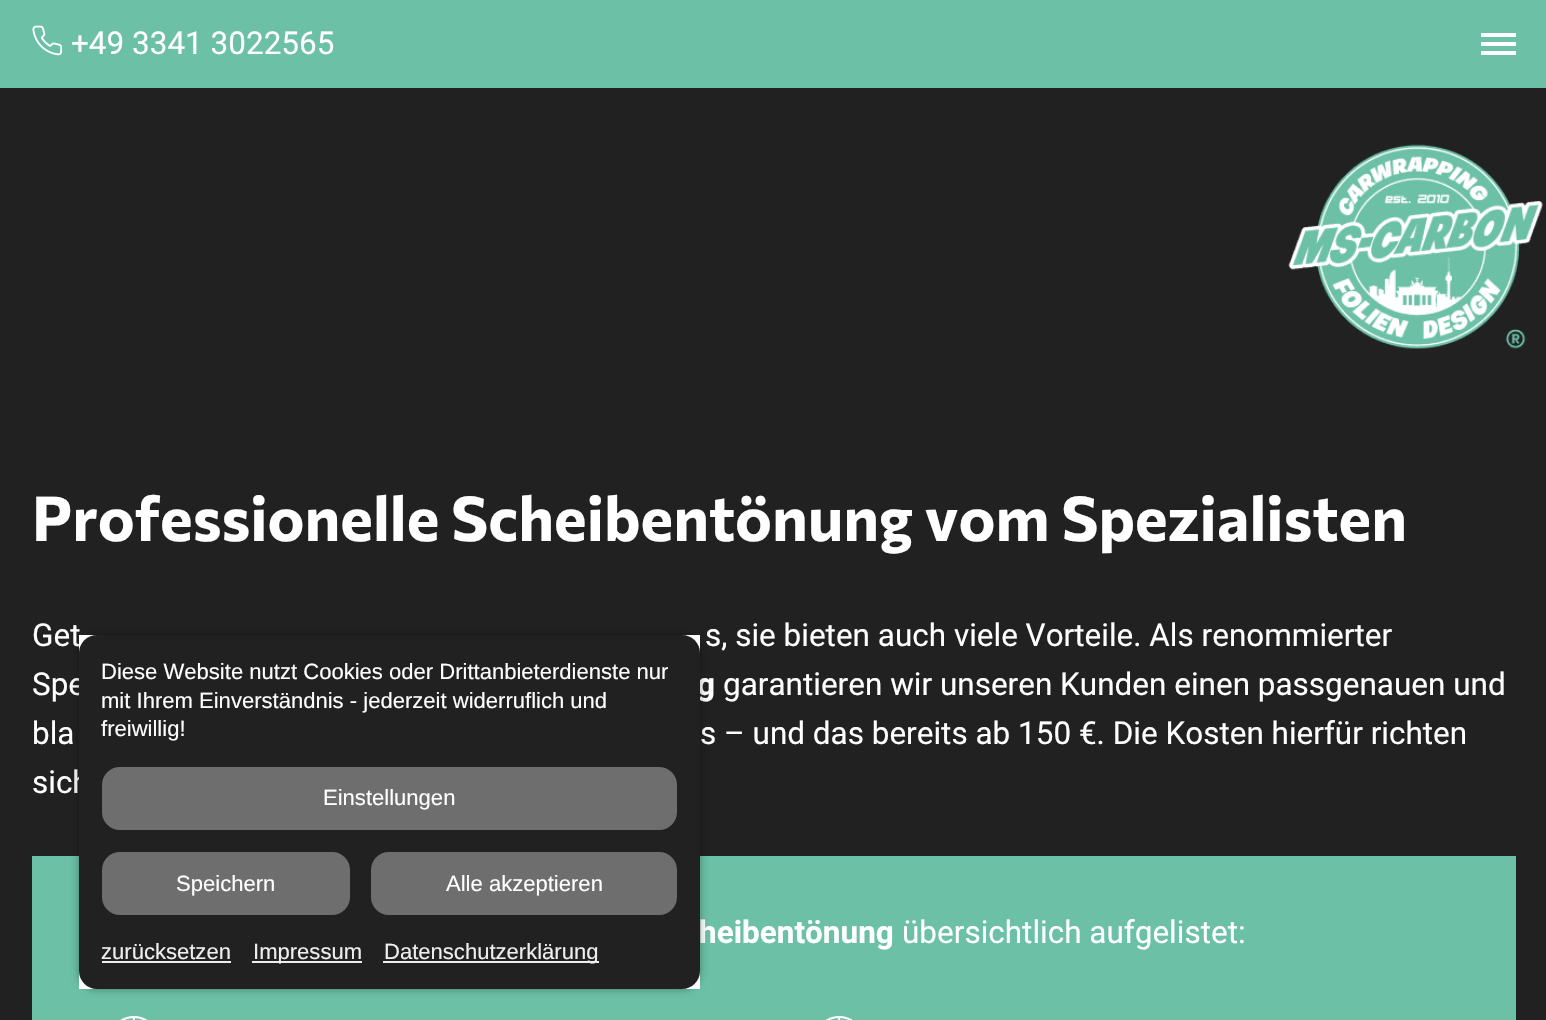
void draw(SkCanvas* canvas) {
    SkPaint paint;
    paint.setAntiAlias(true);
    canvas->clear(0xFF212121);
    paint.setColor(0xFF6BC0A6);
    canvas->drawRect(SkRect::MakeXYWH(0, 0, 1546, 88), paint);
    canvas->drawImageRect(SkImages::DeferredFromEncodedData(SkData::MakeFromFileName("img1.png")), SkRect::MakeXYWH(32, 25, 31, 31), SkSamplingOptions());
    SkFont font1(fontMgr->matchFamilyStyle("Roboto", SkFontStyle::Normal()), 31.5f);
    font1.setSubpixel(true);
    paint.setColor(0xFFFFFFFF);
    canvas->drawString("+49 3341 3022565", 71, 54, font1, paint);
    canvas->drawRect(SkRect::MakeXYWH(1481, 42, 35, 4), paint);
    canvas->drawRect(SkRect::MakeXYWH(1481, 33, 35, 4), paint);
    canvas->drawRect(SkRect::MakeXYWH(1481, 51, 35, 4), paint);
    canvas->drawImageRect(SkImages::DeferredFromEncodedData(SkData::MakeFromFileName("img2.png")), SkRect::MakeXYWH(1288, 144, 255, 205), SkSamplingOptions());
    SkFont font2(fontMgr->matchFamilyStyle("Commissioner", SkFontStyle(100, SkFontStyle::kNormal_Width, SkFontStyle::kUpright_Slant)), 61.9f);
    font2.setSubpixel(true);
    canvas->drawString("Professionelle Scheibentönung vom Spezialisten", 32, 541, font2, paint);
    canvas->drawString("Get", 32, 646, font1, paint);
    canvas->drawString("s, sie bieten auch viele Vorteile. Als renommierter", 705, 646, font1, paint);
    canvas->drawString("Spe", 32, 695, font1, paint);
    SkFont font3(fontMgr->matchFamilyStyle("Roboto", SkFontStyle::Bold()), 31.5f);
    font3.setSubpixel(true);
    canvas->drawString("g", 697, 695, font3, paint);
    canvas->drawString("garantieren wir unseren Kunden einen passgenauen und", 723, 695, font1, paint);
    canvas->drawString("bla", 32, 744, font1, paint);
    canvas->drawString("s – und das bereits ab 150 €. Die Kosten hierfür richten", 700, 744, font1, paint);
    canvas->drawString("sich", 32, 793, font1, paint);
    paint.setColor(0xFF6BC0A6);
    canvas->drawRect(SkRect::MakeXYWH(32, 856, 1484, 164), paint);
    paint.setColor(0xFFFFFFFF);
    canvas->drawString("heibentönung", 699, 943, font3, paint);
    canvas->drawString("übersichtlich aufgelistet:", 902, 943, font1, paint);
    canvas->drawImageRect(SkImages::DeferredFromEncodedData(SkData::MakeFromFileName("img3.png")), SkRect::MakeXYWH(120, 1016, 28, 4), SkSamplingOptions());
    canvas->drawImageRect(SkImages::DeferredFromEncodedData(SkData::MakeFromFileName("img4.png")), SkRect::MakeXYWH(825, 1016, 28, 4), SkSamplingOptions());
    paint.setColor(0x59000000);
    paint.setMaskFilter(SkMaskFilter::MakeBlur(kNormal_SkBlurStyle, 4.5f));
    canvas->drawRoundRect(SkRect::MakeXYWH(79, 635, 621, 354), 18, 18, paint);
    paint.setMaskFilter(nullptr);
    paint.setColor(0xFFFFFFFF);
    canvas->drawRect(SkRect::MakeXYWH(79, 635, 621, 354), paint);
    paint.setColor(0xFF212121);
    canvas->drawPath(SkPathBuilder().moveTo(97, 635).lineTo(682, 635).cubicTo(692, 635, 700, 643, 700, 653).lineTo(700, 852).lineTo(79, 852).lineTo(79, 653).cubicTo(79, 643, 87, 635, 97, 635).close().detach(), paint);
    SkFont font4(fontMgr->matchFamilyStyle("Liberation Sans", SkFontStyle::Normal()), 22.05f);
    font4.setSubpixel(true);
    paint.setColor(0xFFFFFFFF);
    canvas->drawString("Diese Website nutzt Cookies oder Drittanbieterdienste nur", 101, 679, font4, paint);
    canvas->drawString("mit Ihrem Einverständnis - jederzeit widerruflich und", 101, 708, font4, paint);
    canvas->drawString("freiwillig!", 101, 736, font4, paint);
    paint.setColor(0xFF6E6E6E);
    canvas->drawRoundRect(SkRect::MakeXYWH(102, 767, 575, 63), 18, 18, paint);
    paint.setColor(0xFFFFFFFF);
    canvas->drawString("Einstellungen", 323, 805, font4, paint);
    paint.setColor(0xFF212121);
    canvas->drawRect(SkRect::MakeXYWH(79, 852, 621, 63), paint);
    paint.setColor(0xFF6E6E6E);
    canvas->drawRoundRect(SkRect::MakeXYWH(102, 852, 248, 63), 18, 18, paint);
    paint.setColor(0xFFFFFFFF);
    canvas->drawString("Speichern", 176, 891, font4, paint);
    paint.setColor(0xFF6E6E6E);
    canvas->drawRoundRect(SkRect::MakeXYWH(371, 852, 306, 63), 18, 18, paint);
    paint.setColor(0xFFFFFFFF);
    canvas->drawString("Alle akzeptieren", 446, 891, font4, paint);
    paint.setColor(0xFF212121);
    canvas->drawPath(SkPathBuilder().moveTo(79, 915).lineTo(700, 915).lineTo(700, 971).cubicTo(700, 981, 692, 989, 682, 989).lineTo(97, 989).cubicTo(87, 989, 79, 981, 79, 971).close().detach(), paint);
    paint.setColor(0xFFEEEEEE);
    canvas->drawString("zurücksetzen", 101, 959, font4, paint);
    canvas->drawRect(SkRect::MakeXYWH(102, 961, 129, 2), paint);
    canvas->drawRect(SkRect::MakeXYWH(252, 961, 110, 2), paint);
    canvas->drawString("Impressum", 253, 959, font4, paint);
    canvas->drawRect(SkRect::MakeXYWH(383, 961, 216, 2), paint);
    canvas->drawString("Datenschutzerklärung", 384, 959, font4, paint);
}
